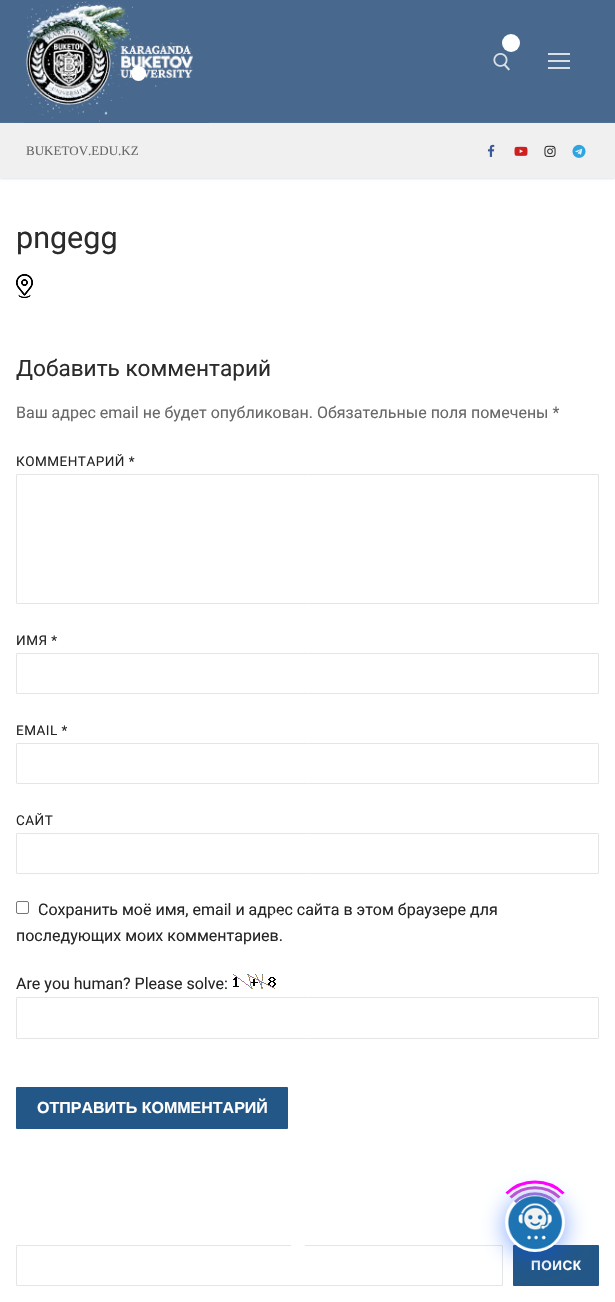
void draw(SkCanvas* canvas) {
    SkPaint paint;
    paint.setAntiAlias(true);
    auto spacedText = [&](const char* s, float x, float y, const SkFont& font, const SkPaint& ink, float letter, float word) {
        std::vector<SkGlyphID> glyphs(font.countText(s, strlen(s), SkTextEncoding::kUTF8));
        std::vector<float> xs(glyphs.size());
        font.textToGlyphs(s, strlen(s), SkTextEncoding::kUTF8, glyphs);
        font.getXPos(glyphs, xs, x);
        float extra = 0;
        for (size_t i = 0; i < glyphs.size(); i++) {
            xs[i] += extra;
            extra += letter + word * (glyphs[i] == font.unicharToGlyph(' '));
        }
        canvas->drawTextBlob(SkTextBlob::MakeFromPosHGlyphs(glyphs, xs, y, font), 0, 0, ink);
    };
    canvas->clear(0xFFFFFFFF);
    paint.setColor(0xFF48688E);
    canvas->drawRect(SkRect::MakeXYWH(0, 0, 615, 123), paint);
    paint.setColor(0xFFFFFFFF);
    canvas->drawCircle(511, 43, 9, paint);
    paint.setColor(0xFFE1E5EA);
    paint.setMaskFilter(SkMaskFilter::MakeBlur(kNormal_SkBlurStyle, 1));
    canvas->drawRect(SkRect::MakeXYWH(0, 124, 615, 55), paint);
    paint.setMaskFilter(nullptr);
    canvas->drawImageRect(SkImages::DeferredFromEncodedData(SkData::MakeFromFileName("img1.png")), SkRect::MakeXYWH(24, 1, 185, 122), SkSamplingOptions());
    paint.setColor(0xFFFFFFFF);
    canvas->drawCircle(138.5f, 73.5f, 7.5f, paint);
    canvas->drawImageRect(SkImages::DeferredFromEncodedData(SkData::MakeFromFileName("img2.png")), SkRect::MakeXYWH(493, 53, 17, 18), SkSamplingOptions());
    paint.setColor(0xFFD9DFE7);
    canvas->drawRect(SkRect::MakeXYWH(548, 60, 22, 2), paint);
    canvas->drawRect(SkRect::MakeXYWH(548, 53, 22, 2), paint);
    canvas->drawRect(SkRect::MakeXYWH(548, 67, 22, 2), paint);
    paint.setColor(0xFFF0F0F0);
    canvas->drawRect(SkRect::MakeXYWH(0, 123, 615, 55), paint);
    SkFont font1(fontMgr->matchFamilyStyle("Liberation Serif", SkFontStyle::Normal()), 13);
    font1.setSubpixel(true);
    paint.setColor(0xFF686868);
    canvas->drawString("BUKETOV.EDU.KZ", 26, 155, font1, paint);
    canvas->drawImageRect(SkImages::DeferredFromEncodedData(SkData::MakeFromFileName("img3.png")), SkRect::MakeXYWH(487, 144, 8, 13), SkSamplingOptions());
    canvas->drawImageRect(SkImages::DeferredFromEncodedData(SkData::MakeFromFileName("img4.png")), SkRect::MakeXYWH(514, 146, 14, 10), SkSamplingOptions());
    canvas->drawImageRect(SkImages::DeferredFromEncodedData(SkData::MakeFromFileName("img5.png")), SkRect::MakeXYWH(544, 145, 12, 12), SkSamplingOptions());
    canvas->drawImageRect(SkImages::DeferredFromEncodedData(SkData::MakeFromFileName("img6.png")), SkRect::MakeXYWH(572, 144, 14, 14), SkSamplingOptions());
    SkFont font2(fontMgr->matchFamilyStyle("Roboto", SkFontStyle::Normal()), 30.5f);
    font2.setSubpixel(true);
    paint.setColor(0xFF2B2B2B);
    canvas->drawString("pngegg", 16, 248, font2, paint);
    canvas->drawImageRect(SkImages::DeferredFromEncodedData(SkData::MakeFromFileName("img7.png")), SkRect::MakeXYWH(16, 274, 17, 24), SkSamplingOptions());
    SkFont font3(fontMgr->matchFamilyStyle("Roboto", SkFontStyle::Normal()), 22.6f);
    font3.setSubpixel(true);
    canvas->drawString("Добавить комментарий", 16, 376, font3, paint);
    SkFont font4(fontMgr->matchFamilyStyle("Roboto", SkFontStyle::Normal()), 16);
    font4.setSubpixel(true);
    paint.setColor(0xFF686868);
    canvas->drawString("Ваш адрес email не будет опубликован. Обязательные поля помечены *", 16, 418, font4, paint);
    SkFont font5(fontMgr->matchFamilyStyle("Roboto", SkFontStyle::Normal()), 13.5f);
    font5.setSubpixel(true);
    paint.setColor(0xFF252525);
    spacedText("КОММЕНТАРИЙ *", 16, 466, font5, paint, 0.5f, 0);
    paint.setStyle(SkPaint::kStroke_Style);
    paint.setStrokeWidth(1);
    paint.setColor(0xFFE5E5E5);
    canvas->drawRoundRect(SkRect::MakeXYWH(16.5f, 474.5f, 582, 129), 0.5f, 0.5f, paint);
    paint.setStyle(SkPaint::kFill_Style);
    paint.setColor(0xFF252525);
    spacedText("ИМЯ *", 16, 645, font5, paint, 0.5f, 0);
    paint.setStyle(SkPaint::kStroke_Style);
    paint.setColor(0xFFE5E5E5);
    canvas->drawRoundRect(SkRect::MakeXYWH(16.5f, 653.5f, 582, 40), 0.5f, 0.5f, paint);
    paint.setStyle(SkPaint::kFill_Style);
    paint.setColor(0xFF252525);
    spacedText("EMAIL *", 16, 735, font5, paint, 0.5f, 0);
    paint.setStyle(SkPaint::kStroke_Style);
    paint.setColor(0xFFE5E5E5);
    canvas->drawRoundRect(SkRect::MakeXYWH(16.5f, 743.5f, 582, 40), 0.5f, 0.5f, paint);
    paint.setStyle(SkPaint::kFill_Style);
    paint.setColor(0xFF252525);
    spacedText("САЙТ", 16, 825, font5, paint, 0.5f, 0);
    paint.setStyle(SkPaint::kStroke_Style);
    paint.setColor(0xFFE5E5E5);
    canvas->drawRoundRect(SkRect::MakeXYWH(16.5f, 833.5f, 582, 40), 0.5f, 0.5f, paint);
    paint.setColor(0xFF767676);
    canvas->drawRoundRect(SkRect::MakeXYWH(16.5f, 901.5f, 12, 12), 1.5f, 1.5f, paint);
    paint.setStyle(SkPaint::kFill_Style);
    paint.setColor(0xFF252525);
    canvas->drawString("Сохранить моё имя, email и адрес сайта в этом браузере для", 38, 915, font4, paint);
    canvas->drawString("последующих моих комментариев.", 16, 941, font4, paint);
    canvas->drawString("Are you human? Please solve:", 16, 989, font4, paint);
    canvas->drawImageRect(SkImages::DeferredFromEncodedData(SkData::MakeFromFileName("img8.png")), SkRect::MakeXYWH(233, 974, 43, 15), SkSamplingOptions());
    paint.setStyle(SkPaint::kStroke_Style);
    paint.setColor(0xFFE5E5E5);
    canvas->drawRoundRect(SkRect::MakeXYWH(16.5f, 997.5f, 582, 41), 0.5f, 0.5f, paint);
    paint.setStyle(SkPaint::kFill_Style);
    paint.setColor(0xFF235787);
    canvas->drawRoundRect(SkRect::MakeXYWH(16, 1087, 272, 42), 1, 1, paint);
    SkFont font6(fontMgr->matchFamilyStyle("Liberation Sans", SkFontStyle::Bold()), 16);
    font6.setSubpixel(true);
    paint.setColor(0xFFFFFFFF);
    canvas->drawString("ОТПРАВИТЬ КОММЕНТАРИЙ", 37, 1113, font6, paint);
    paint.setStyle(SkPaint::kStroke_Style);
    paint.setColor(0xFFE5E5E5);
    canvas->drawRoundRect(SkRect::MakeXYWH(16.5f, 1245.5f, 486, 40), 0.5f, 0.5f, paint);
    paint.setStyle(SkPaint::kFill_Style);
    paint.setColor(0xFF235787);
    canvas->drawRoundRect(SkRect::MakeXYWH(513, 1245, 86, 41), 1, 1, paint);
    SkFont font7(fontMgr->matchFamilyStyle("Liberation Sans", SkFontStyle::Bold()), 13.5f);
    font7.setSubpixel(true);
    paint.setColor(0xFFFFFFFF);
    spacedText("ПОИСК", 531, 1270, font7, paint, 0.5f, 0);
    canvas->drawRoundRect(SkRect::MakeXYWH(271, 913, 10, 11), 5, 5, paint);
    canvas->drawCircle(298, 1251, 9, paint);
    paint.setColor(0x80004DFF);
    paint.setMaskFilter(SkMaskFilter::MakeBlur(kNormal_SkBlurStyle, 12));
    canvas->drawRoundRect(SkRect::MakeXYWH(505, 1196, 60, 60), 30, 30, paint);
    paint.setMaskFilter(nullptr);
    paint.setColor(0xFFFFFFFF);
    canvas->drawCircle(535, 1222, 30, paint);
    canvas->drawImageRect(SkImages::DeferredFromEncodedData(SkData::MakeFromFileName("img9.png")), SkRect::MakeXYWH(507, 1195, 56, 55), SkSamplingOptions());
    paint.setStyle(SkPaint::kStroke_Style);
    paint.setStrokeWidth(3);
    paint.setColor(0xFF9370DB);
    canvas->drawPath(SkPathBuilder().moveTo(515, 1202).cubicTo(526, 1191, 544, 1191, 555, 1202).detach(), paint);
    paint.setColor(0xFFBA55D3);
    canvas->drawPath(SkPathBuilder().moveTo(510.5f, 1197.5f).cubicTo(524, 1184.5f, 546, 1184.5f, 559.5f, 1197.5f).detach(), paint);
    paint.setColor(0xFFFF00FF);
    canvas->drawPath(SkPathBuilder().moveTo(506.5f, 1193.5f).cubicTo(522, 1178, 548, 1178, 563.5f, 1193.5f).detach(), paint);
}
